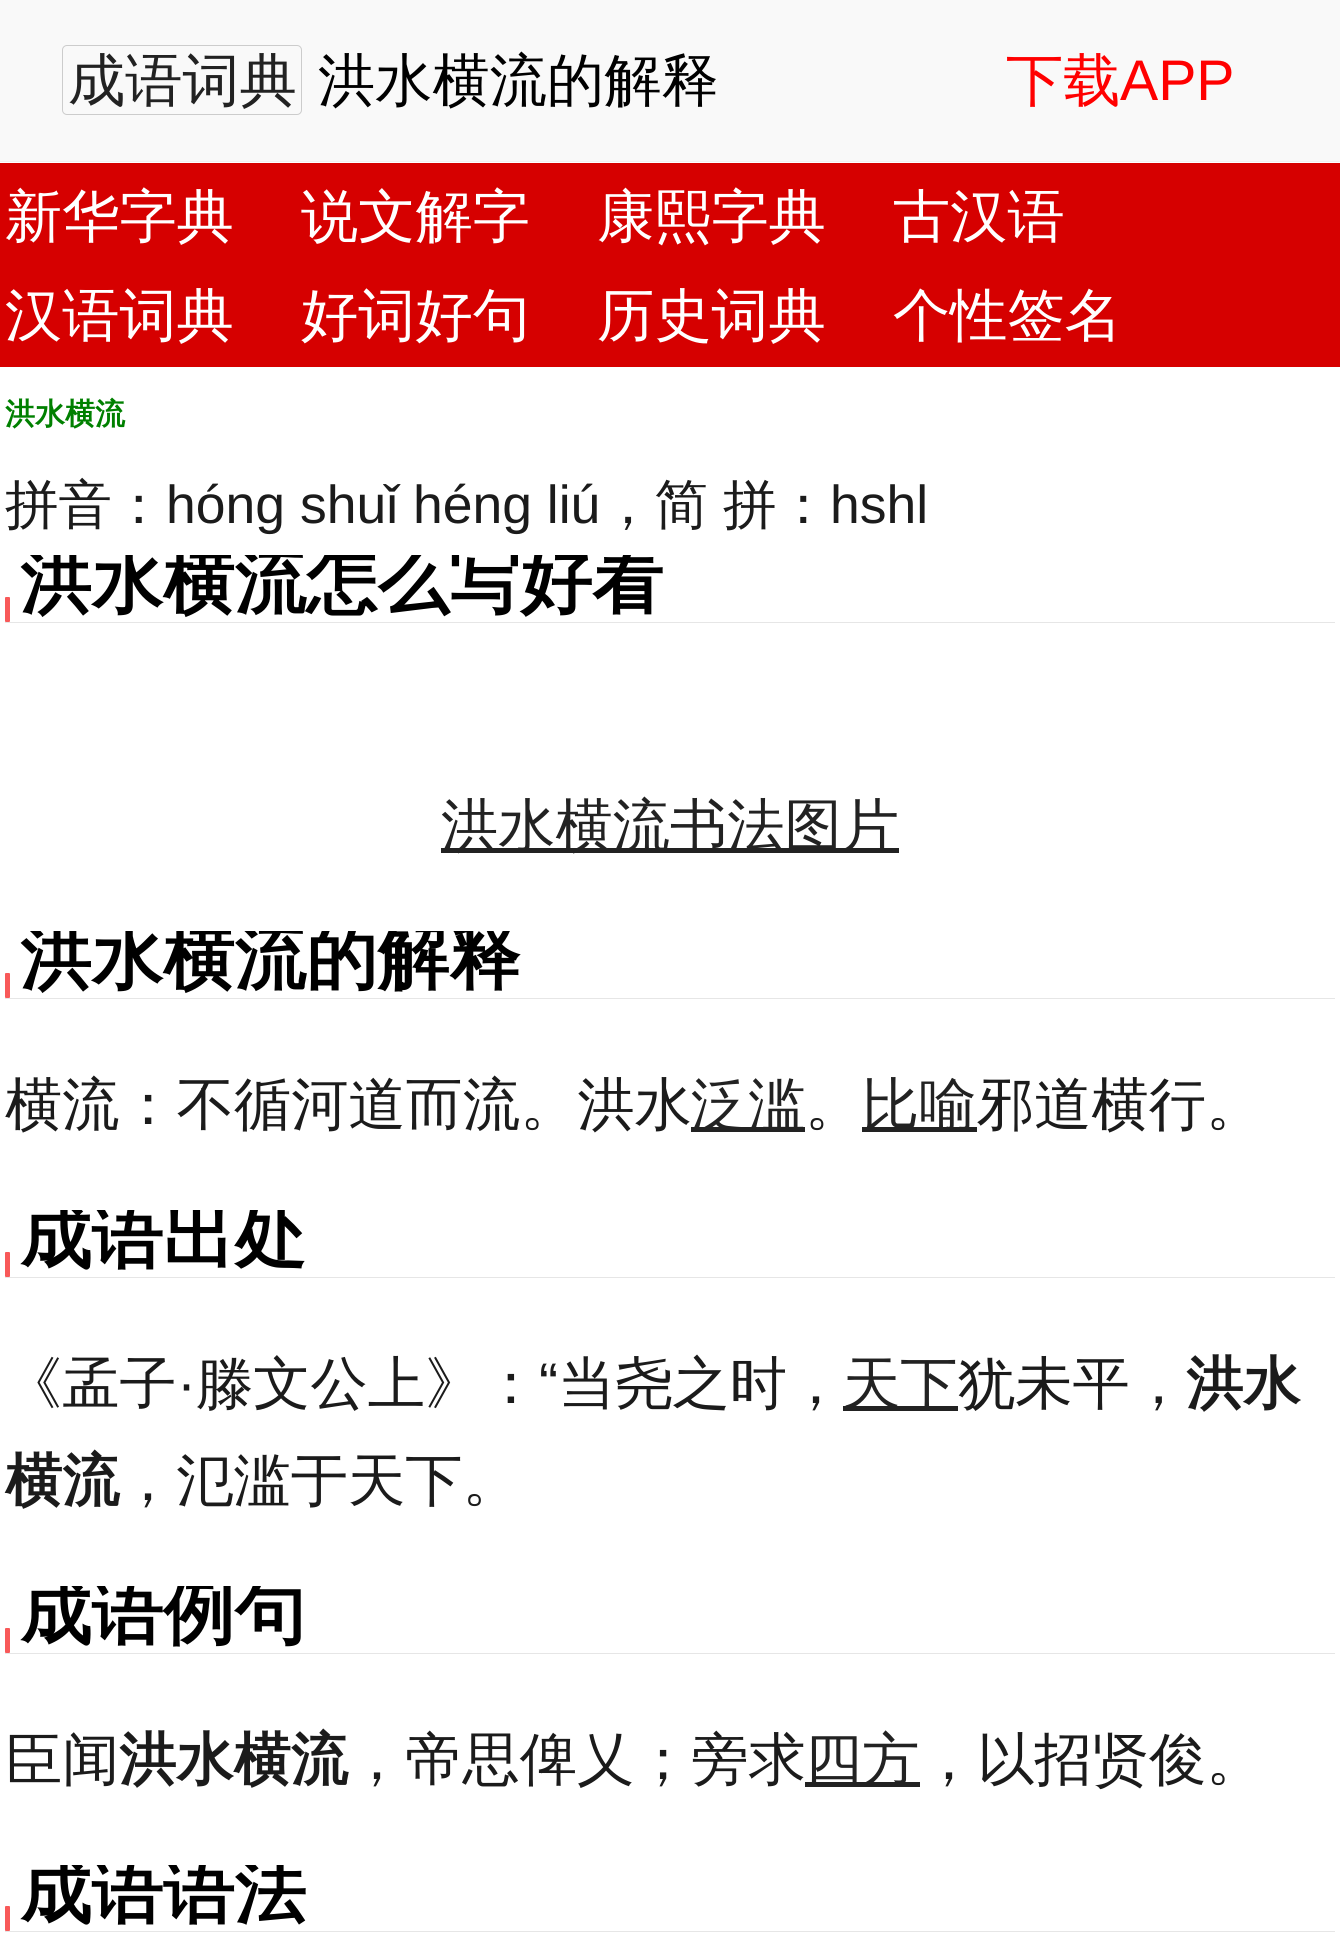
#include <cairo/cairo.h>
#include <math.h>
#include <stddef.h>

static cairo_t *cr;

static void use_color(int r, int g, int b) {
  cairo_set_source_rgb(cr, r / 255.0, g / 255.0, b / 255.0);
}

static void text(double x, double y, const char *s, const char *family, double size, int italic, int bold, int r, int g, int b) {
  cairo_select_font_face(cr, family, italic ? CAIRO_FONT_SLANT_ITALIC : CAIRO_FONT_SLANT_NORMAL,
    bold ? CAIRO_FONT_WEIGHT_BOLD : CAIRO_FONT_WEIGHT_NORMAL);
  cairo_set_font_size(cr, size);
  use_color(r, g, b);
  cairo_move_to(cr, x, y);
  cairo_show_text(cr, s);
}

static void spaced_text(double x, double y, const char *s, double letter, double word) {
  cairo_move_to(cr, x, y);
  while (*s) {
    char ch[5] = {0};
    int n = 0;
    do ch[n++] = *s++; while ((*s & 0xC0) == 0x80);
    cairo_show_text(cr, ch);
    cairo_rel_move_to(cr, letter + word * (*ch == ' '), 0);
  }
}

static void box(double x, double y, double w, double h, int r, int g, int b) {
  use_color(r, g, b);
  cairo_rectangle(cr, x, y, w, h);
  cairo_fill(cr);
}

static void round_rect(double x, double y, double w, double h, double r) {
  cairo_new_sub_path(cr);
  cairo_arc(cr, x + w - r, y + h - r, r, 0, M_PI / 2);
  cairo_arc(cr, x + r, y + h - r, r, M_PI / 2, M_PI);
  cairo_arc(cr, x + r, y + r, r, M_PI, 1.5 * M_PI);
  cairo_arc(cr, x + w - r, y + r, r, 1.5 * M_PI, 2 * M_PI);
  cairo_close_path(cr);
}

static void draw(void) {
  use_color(255, 255, 255);
  cairo_paint(cr);
  box(0, 0, 1340, 161, 249, 249, 249);
  box(0, 161, 1340, 1, 241, 241, 241);
  round_rect(62.5, 45.5, 239, 69, 4.5);
  use_color(204, 204, 204);
  cairo_set_line_width(cr, 1);
  cairo_stroke(cr);
  box(0, 163, 1340, 204, 214, 0, 0);
  box(5, 622, 1330, 1, 230, 230, 230);
  use_color(248, 89, 89);
  round_rect(5, 597, 5, 25, 1);
  cairo_fill(cr);
  box(441, 848, 458, 5, 34, 34, 34);
  box(5, 998, 1330, 1, 230, 230, 230);
  use_color(248, 89, 89);
  round_rect(5, 973, 5, 25, 1);
  cairo_fill(cr);
  box(691, 1127, 114, 5, 34, 34, 34);
  box(862, 1127, 115, 5, 34, 34, 34);
  box(5, 1277, 1330, 1, 230, 230, 230);
  use_color(248, 89, 89);
  round_rect(5, 1252, 5, 25, 1);
  cairo_fill(cr);
  box(843, 1406, 115, 5, 34, 34, 34);
  box(5, 1653, 1330, 1, 230, 230, 230);
  use_color(248, 89, 89);
  round_rect(5, 1628, 5, 25, 1);
  cairo_fill(cr);
  box(805, 1782, 115, 5, 34, 34, 34);
  box(5, 1931, 1330, 1, 230, 230, 230);
  use_color(248, 89, 89);
  round_rect(5, 1906, 5, 25, 1);
  cairo_fill(cr);
  text(68, 100, "成语词典", "WenQuanYi Zen Hei Medium", 57.25, 0, 0, 34, 34, 34);
  text(318, 100, "洪水横流的解释", "WenQuanYi Zen Hei Medium", 57.25, 0, 0, 0, 0, 0);
  text(1006, 100, "下载", "WenQuanYi Zen Hei Medium", 57.25, 0, 0, 255, 0, 0);
  text(1120, 100, "APP", "Liberation Sans", 57.25, 0, 0, 255, 0, 0);
  text(5, 236, "新华字典", "WenQuanYi Zen Hei Medium", 57.25, 0, 0, 255, 255, 255);
  text(301, 236, "说文解字", "WenQuanYi Zen Hei Medium", 57.25, 0, 0, 255, 255, 255);
  text(597, 236, "康熙字典", "WenQuanYi Zen Hei Medium", 57.25, 0, 0, 255, 255, 255);
  text(893, 236, "古汉语", "WenQuanYi Zen Hei Medium", 57.25, 0, 0, 255, 255, 255);
  text(5, 335, "汉语词典", "WenQuanYi Zen Hei Medium", 57.25, 0, 0, 255, 255, 255);
  text(301, 335, "好词好句", "WenQuanYi Zen Hei Medium", 57.25, 0, 0, 255, 255, 255);
  text(597, 335, "历史词典", "WenQuanYi Zen Hei Medium", 57.25, 0, 0, 255, 255, 255);
  text(893, 335, "个性签名", "WenQuanYi Zen Hei Medium", 57.25, 0, 0, 255, 255, 255);
  text(5, 424, "洪水横流", "WenQuanYi Zen Hei", 30, 0, 1, 0, 128, 0);
  text(5, 523, "拼音：", "WenQuanYi Zen Hei Medium", 53.5, 0, 0, 27, 27, 27);
  text(166, 523, "hóng shuǐ héng liú", "Liberation Sans", 53.5, 0, 0, 27, 27, 27);
  cairo_select_font_face(cr, "WenQuanYi Zen Hei Medium", CAIRO_FONT_SLANT_NORMAL, CAIRO_FONT_WEIGHT_NORMAL);
  spaced_text(601, 523, "，简 拼：", 0, -1);
  text(830, 523, "hshl", "Liberation Sans", 53.5, 0, 0, 27, 27, 27);
  cairo_save(cr);
  cairo_rectangle(cr, 5, 555, 1330, 67);
  cairo_clip(cr);
  text(20, 606, "洪水横流怎么写好看", "WenQuanYi Zen Hei", 71.5, 0, 1, 0, 0, 0);
  cairo_restore(cr);
  text(441, 845, "洪水横流书法图片", "WenQuanYi Zen Hei Medium", 57.25, 0, 0, 34, 34, 34);
  cairo_save(cr);
  cairo_rectangle(cr, 5, 931, 1330, 67);
  cairo_clip(cr);
  text(20, 982, "洪水横流的解释", "WenQuanYi Zen Hei", 71.5, 0, 1, 0, 0, 0);
  cairo_restore(cr);
  text(5, 1124, "横流：不循河道而流。洪水", "WenQuanYi Zen Hei Medium", 57.25, 0, 0, 27, 27, 27);
  text(691, 1124, "泛滥", "WenQuanYi Zen Hei Medium", 57.25, 0, 0, 34, 34, 34);
  text(805, 1124, "。", "WenQuanYi Zen Hei Medium", 57.25, 0, 0, 27, 27, 27);
  text(862, 1124, "比喻", "WenQuanYi Zen Hei Medium", 57.25, 0, 0, 34, 34, 34);
  text(977, 1124, "邪道横行。", "WenQuanYi Zen Hei Medium", 57.25, 0, 0, 27, 27, 27);
  cairo_save(cr);
  cairo_rectangle(cr, 5, 1210, 1330, 67);
  cairo_clip(cr);
  text(20, 1261, "成语出处", "WenQuanYi Zen Hei", 71.5, 0, 1, 0, 0, 0);
  cairo_restore(cr);
  text(5, 1403, "《孟子", "WenQuanYi Zen Hei Medium", 57.25, 0, 0, 27, 27, 27);
  text(196, 1403, "滕文公上》：", "WenQuanYi Zen Hei Medium", 57.25, 0, 0, 27, 27, 27);
  text(539, 1403, "“", "Liberation Sans", 57.25, 0, 0, 27, 27, 27);
  text(558, 1403, "当尧之时，", "WenQuanYi Zen Hei Medium", 57.25, 0, 0, 27, 27, 27);
  text(843, 1403, "天下", "WenQuanYi Zen Hei Medium", 57.25, 0, 0, 34, 34, 34);
  text(958, 1403, "犹未平，", "WenQuanYi Zen Hei Medium", 57.25, 0, 0, 27, 27, 27);
  text(1186, 1403, "洪水", "WenQuanYi Zen Hei", 57.25, 0, 1, 27, 27, 27);
  text(177, 1403, "·", "Liberation Sans", 57.25, 0, 0, 27, 27, 27);
  text(5, 1500, "横流", "WenQuanYi Zen Hei", 57.25, 0, 1, 27, 27, 27);
  text(119, 1500, "，氾滥于天下。", "WenQuanYi Zen Hei Medium", 57.25, 0, 0, 27, 27, 27);
  cairo_save(cr);
  cairo_rectangle(cr, 5, 1586, 1330, 67);
  cairo_clip(cr);
  text(20, 1637, "成语例句", "WenQuanYi Zen Hei", 71.5, 0, 1, 0, 0, 0);
  cairo_restore(cr);
  text(5, 1779, "臣闻", "WenQuanYi Zen Hei Medium", 57.25, 0, 0, 27, 27, 27);
  text(119, 1779, "洪水横流", "WenQuanYi Zen Hei", 57.25, 0, 1, 27, 27, 27);
  text(348, 1779, "，帝思俾乂；旁求", "WenQuanYi Zen Hei Medium", 57.25, 0, 0, 27, 27, 27);
  text(805, 1779, "四方", "WenQuanYi Zen Hei Medium", 57.25, 0, 0, 34, 34, 34);
  text(920, 1779, "，以招贤俊。", "WenQuanYi Zen Hei Medium", 57.25, 0, 0, 27, 27, 27);
  cairo_save(cr);
  cairo_rectangle(cr, 5, 1865, 1330, 66);
  cairo_clip(cr);
  text(20, 1916, "成语语法", "WenQuanYi Zen Hei", 71.5, 0, 1, 0, 0, 0);
  cairo_restore(cr);
}

int main(void) {
  cairo_surface_t *surface = cairo_image_surface_create(CAIRO_FORMAT_RGB24, 1340, 1934);
  cr = cairo_create(surface);
  cairo_font_options_t *options = cairo_font_options_create();
  cairo_font_options_set_hint_metrics(options, CAIRO_HINT_METRICS_OFF);
  cairo_font_options_set_hint_style(options, CAIRO_HINT_STYLE_NONE);
  cairo_set_font_options(cr, options);
  cairo_set_miter_limit(cr, 4);
  draw();
  cairo_surface_write_to_png(surface, "out.png");
  cairo_font_options_destroy(options);
  cairo_destroy(cr);
  cairo_surface_destroy(surface);
  return 0;
}
